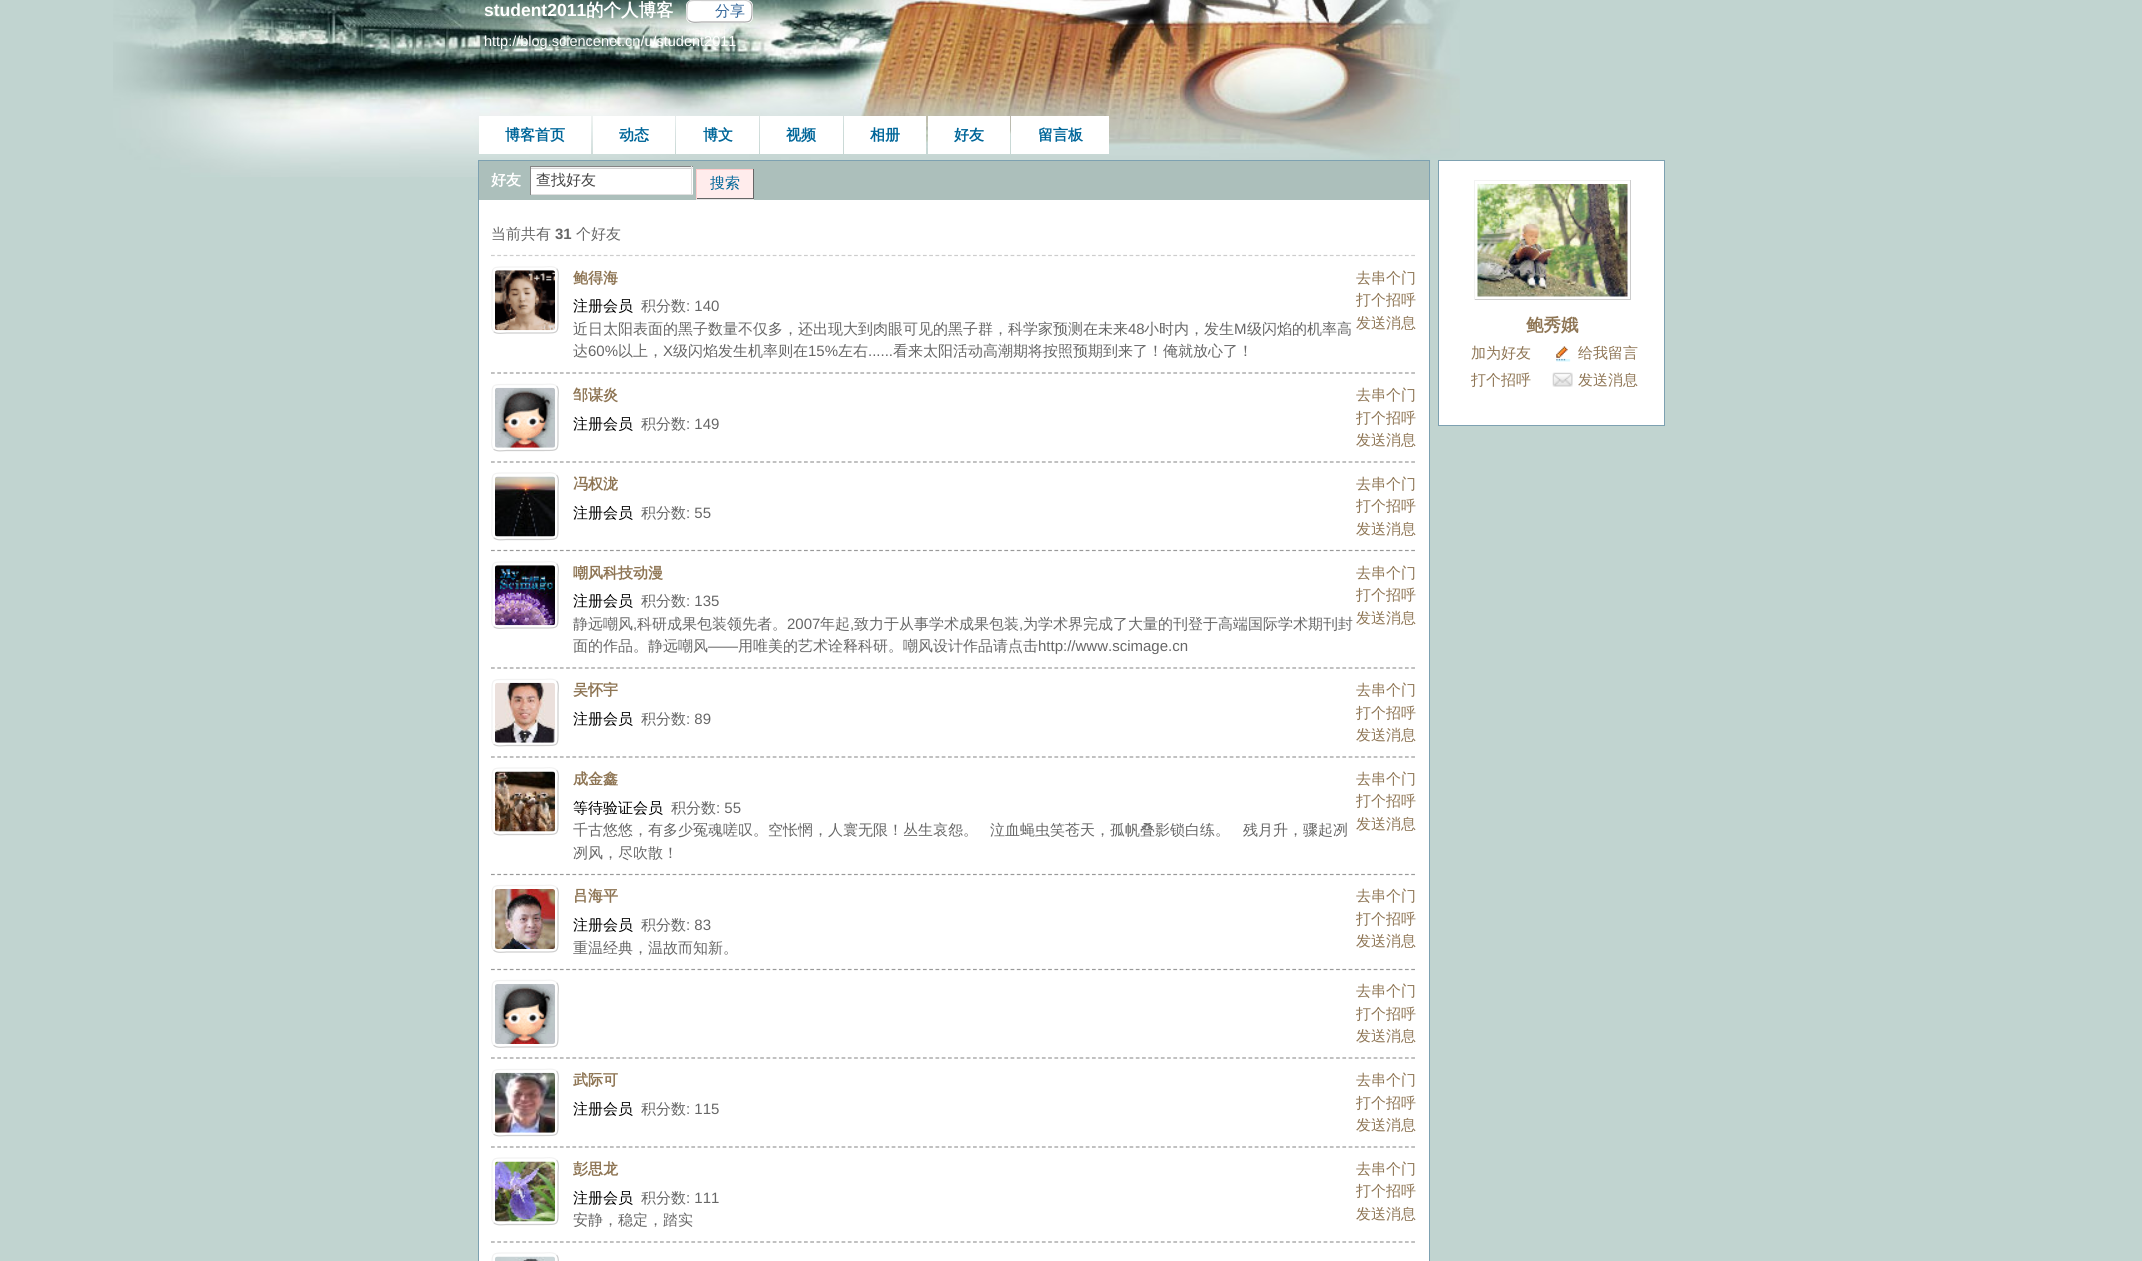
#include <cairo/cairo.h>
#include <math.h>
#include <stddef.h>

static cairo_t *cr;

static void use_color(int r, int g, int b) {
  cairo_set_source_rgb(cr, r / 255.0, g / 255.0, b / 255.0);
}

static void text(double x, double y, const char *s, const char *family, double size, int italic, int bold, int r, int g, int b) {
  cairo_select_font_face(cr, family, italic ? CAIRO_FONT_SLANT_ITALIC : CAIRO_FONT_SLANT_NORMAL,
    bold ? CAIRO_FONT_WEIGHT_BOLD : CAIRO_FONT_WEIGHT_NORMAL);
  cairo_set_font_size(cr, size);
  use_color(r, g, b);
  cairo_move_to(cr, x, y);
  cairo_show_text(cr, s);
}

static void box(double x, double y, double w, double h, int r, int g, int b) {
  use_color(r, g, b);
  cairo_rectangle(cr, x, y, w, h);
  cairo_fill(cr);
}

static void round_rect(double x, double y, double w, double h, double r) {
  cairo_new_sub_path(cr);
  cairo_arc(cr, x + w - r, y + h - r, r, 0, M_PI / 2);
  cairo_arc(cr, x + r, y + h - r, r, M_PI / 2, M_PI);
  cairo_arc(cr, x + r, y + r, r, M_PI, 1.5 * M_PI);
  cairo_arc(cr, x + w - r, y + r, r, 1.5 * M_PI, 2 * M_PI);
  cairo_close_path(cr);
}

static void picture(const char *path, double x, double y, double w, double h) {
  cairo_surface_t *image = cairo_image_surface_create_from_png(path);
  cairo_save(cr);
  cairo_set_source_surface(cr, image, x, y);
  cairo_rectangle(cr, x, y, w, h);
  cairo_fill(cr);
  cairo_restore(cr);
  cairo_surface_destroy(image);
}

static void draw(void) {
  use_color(193, 212, 208);
  cairo_paint(cr);
  picture("img_01.png", 113, 0, 1347, 177);
  use_color(255, 255, 255);
  round_rect(686, 0, 67, 23, 6);
  cairo_fill(cr);
  cairo_new_path(cr);
  cairo_move_to(cr, 750, 2.5);
  cairo_curve_to(cr, 752.5, 4.5, 752, 8.5, 752, 11);
  cairo_curve_to(cr, 752, 23.5, 749.5, 22, 737.5, 22);
  cairo_line_to(cr, 701.5, 22);
  cairo_curve_to(cr, 698.5, 22, 691.5, 23.5, 688.5, 20);
  use_color(169, 169, 169);
  cairo_set_line_width(cr, 1.2);
  cairo_stroke(cr);
  cairo_new_path(cr);
  cairo_move_to(cr, 688.5, 20);
  cairo_curve_to(cr, 686, 18, 687, 14, 687, 11.5);
  cairo_curve_to(cr, 687, -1, 689, 0.5, 701.5, 0.5);
  cairo_line_to(cr, 737.5, 0.5);
  cairo_curve_to(cr, 740, 0.5, 747, -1, 750, 2.5);
  use_color(204, 204, 204);
  cairo_stroke(cr);
  box(479, 116, 112, 38, 255, 255, 255);
  box(593, 116, 82, 38, 255, 255, 255);
  box(676, 116, 83, 38, 255, 255, 255);
  box(760, 116, 83, 38, 255, 255, 255);
  box(844, 116, 82, 38, 255, 255, 255);
  box(928, 116, 82, 38, 255, 255, 255);
  box(1011, 116, 98, 38, 255, 255, 255);
  box(479, 200, 950, 1061, 255, 255, 255);
  cairo_rectangle(cr, 478.5, 160.5, 951, 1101);
  use_color(125, 161, 177);
  cairo_set_line_width(cr, 1);
  cairo_stroke(cr);
  box(479, 161, 950, 39, 172, 191, 187);
  box(531, 167, 162, 27, 255, 255, 255);
  picture("img_02.png", 531, 167, 162, 2);
  box(530, 166, 163, 1, 132, 132, 132);
  box(691, 166, 1, 29, 224, 224, 224);
  box(530, 194, 163, 1, 224, 224, 224);
  box(530, 166, 1, 29, 132, 132, 132);
  use_color(229, 229, 229);
  cairo_new_path(cr);
  cairo_move_to(cr, 696, 170);
  cairo_line_to(cr, 696, 200);
  cairo_line_to(cr, 754, 200);
  cairo_line_to(cr, 754, 170);
  cairo_line_to(cr, 754, 199);
  cairo_line_to(cr, 696, 199);
  cairo_close_path(cr);
  cairo_fill(cr);
  box(697, 170, 56, 28, 255, 236, 236);
  box(696, 169, 58, 1, 255, 204, 204);
  box(753, 169, 1, 30, 102, 102, 102);
  box(696, 198, 58, 1, 102, 102, 102);
  box(696, 169, 1, 30, 255, 204, 204);
  cairo_new_path(cr);
  cairo_move_to(cr, 491, 255.5);
  cairo_line_to(cr, 1416, 255.5);
  use_color(205, 205, 205);
  cairo_set_line_width(cr, 1.2);
  cairo_set_dash(cr, (double[]){3.75, 2.51}, 2, 0);
  cairo_stroke(cr);
  cairo_new_path(cr);
  cairo_move_to(cr, 491, 373);
  cairo_line_to(cr, 1416, 373);
  use_color(153, 153, 153);
  cairo_stroke(cr);
  cairo_new_path(cr);
  cairo_move_to(cr, 556.5, 268.5);
  cairo_curve_to(cr, 559.5, 271.5, 558, 279, 558, 281.5);
  cairo_line_to(cr, 558, 318.5);
  cairo_curve_to(cr, 558, 333.5, 558.5, 333, 543.5, 333);
  cairo_line_to(cr, 506.5, 333);
  cairo_curve_to(cr, 504, 333, 496.5, 334.5, 493.5, 331.5);
  use_color(205, 205, 205);
  cairo_set_dash(cr, NULL, 0, 0);
  cairo_stroke(cr);
  cairo_new_path(cr);
  cairo_move_to(cr, 493.5, 331.5);
  cairo_curve_to(cr, 490.5, 328.5, 492, 321, 492, 318.5);
  cairo_line_to(cr, 492, 281.5);
  cairo_curve_to(cr, 492, 266.5, 491.5, 267, 506.5, 267);
  cairo_line_to(cr, 543.5, 267);
  cairo_curve_to(cr, 546, 267, 553.5, 265.5, 556.5, 268.5);
  use_color(242, 242, 242);
  cairo_stroke(cr);
  picture("img_03.png", 495, 270, 60, 61);
  cairo_new_path(cr);
  cairo_move_to(cr, 491, 462);
  cairo_line_to(cr, 1416, 462);
  use_color(153, 153, 153);
  cairo_set_dash(cr, (double[]){3.75, 2.51}, 2, 0);
  cairo_stroke(cr);
  cairo_new_path(cr);
  cairo_move_to(cr, 556.5, 386);
  cairo_curve_to(cr, 559.5, 389, 558, 396.5, 558, 399);
  cairo_line_to(cr, 558, 436);
  cairo_curve_to(cr, 558, 451, 558.5, 450.5, 543.5, 450.5);
  cairo_line_to(cr, 506.5, 450.5);
  cairo_curve_to(cr, 504, 450.5, 496.5, 452, 493.5, 449);
  use_color(205, 205, 205);
  cairo_set_dash(cr, NULL, 0, 0);
  cairo_stroke(cr);
  cairo_new_path(cr);
  cairo_move_to(cr, 493.5, 449);
  cairo_curve_to(cr, 490.5, 446, 492, 438.5, 492, 436);
  cairo_line_to(cr, 492, 399);
  cairo_curve_to(cr, 492, 384, 491.5, 384.5, 506.5, 384.5);
  cairo_line_to(cr, 543.5, 384.5);
  cairo_curve_to(cr, 546, 384.5, 553.5, 383, 556.5, 386);
  use_color(242, 242, 242);
  cairo_stroke(cr);
  picture("img_04.png", 495, 387, 60, 61);
  cairo_new_path(cr);
  cairo_move_to(cr, 491, 550.5);
  cairo_line_to(cr, 1416, 550.5);
  use_color(153, 153, 153);
  cairo_set_dash(cr, (double[]){3.75, 2.51}, 2, 0);
  cairo_stroke(cr);
  cairo_new_path(cr);
  cairo_move_to(cr, 556.5, 475);
  cairo_curve_to(cr, 559.5, 478, 558, 485, 558, 488);
  cairo_line_to(cr, 558, 524.5);
  cairo_curve_to(cr, 558, 540, 558.5, 539.5, 543.5, 539.5);
  cairo_line_to(cr, 506.5, 539.5);
  cairo_curve_to(cr, 504, 539.5, 496.5, 541, 493.5, 537.5);
  use_color(205, 205, 205);
  cairo_set_dash(cr, NULL, 0, 0);
  cairo_stroke(cr);
  cairo_new_path(cr);
  cairo_move_to(cr, 493.5, 537.5);
  cairo_curve_to(cr, 490.5, 534.5, 492, 527.5, 492, 524.5);
  cairo_line_to(cr, 492, 488);
  cairo_curve_to(cr, 492, 472.5, 491.5, 473, 506.5, 473);
  cairo_line_to(cr, 543.5, 473);
  cairo_curve_to(cr, 546, 473, 553.5, 471.5, 556.5, 475);
  use_color(242, 242, 242);
  cairo_stroke(cr);
  picture("img_05.png", 495, 476, 60, 61);
  cairo_new_path(cr);
  cairo_move_to(cr, 491, 668);
  cairo_line_to(cr, 1416, 668);
  use_color(153, 153, 153);
  cairo_set_dash(cr, (double[]){3.75, 2.51}, 2, 0);
  cairo_stroke(cr);
  cairo_new_path(cr);
  cairo_move_to(cr, 556.5, 563.5);
  cairo_curve_to(cr, 559.5, 566.5, 558, 574, 558, 576.5);
  cairo_line_to(cr, 558, 613.5);
  cairo_curve_to(cr, 558, 628.5, 558.5, 628, 543.5, 628);
  cairo_line_to(cr, 506.5, 628);
  cairo_curve_to(cr, 504, 628, 496.5, 629.5, 493.5, 626.5);
  use_color(205, 205, 205);
  cairo_set_dash(cr, NULL, 0, 0);
  cairo_stroke(cr);
  cairo_new_path(cr);
  cairo_move_to(cr, 493.5, 626.5);
  cairo_curve_to(cr, 490.5, 623.5, 492, 616, 492, 613.5);
  cairo_line_to(cr, 492, 576.5);
  cairo_curve_to(cr, 492, 561.5, 491.5, 562, 506.5, 562);
  cairo_line_to(cr, 543.5, 562);
  cairo_curve_to(cr, 546, 562, 553.5, 560.5, 556.5, 563.5);
  use_color(242, 242, 242);
  cairo_stroke(cr);
  picture("img_06.png", 495, 565, 60, 61);
  cairo_new_path(cr);
  cairo_move_to(cr, 491, 757);
  cairo_line_to(cr, 1416, 757);
  use_color(153, 153, 153);
  cairo_set_dash(cr, (double[]){3.75, 2.51}, 2, 0);
  cairo_stroke(cr);
  cairo_new_path(cr);
  cairo_move_to(cr, 556.5, 681);
  cairo_curve_to(cr, 559.5, 684, 558, 691.5, 558, 694);
  cairo_line_to(cr, 558, 731);
  cairo_curve_to(cr, 558, 746, 558.5, 745.5, 543.5, 745.5);
  cairo_line_to(cr, 506.5, 745.5);
  cairo_curve_to(cr, 504, 745.5, 496.5, 747, 493.5, 744);
  use_color(205, 205, 205);
  cairo_set_dash(cr, NULL, 0, 0);
  cairo_stroke(cr);
  cairo_new_path(cr);
  cairo_move_to(cr, 493.5, 744);
  cairo_curve_to(cr, 490.5, 741, 492, 733.5, 492, 731);
  cairo_line_to(cr, 492, 694);
  cairo_curve_to(cr, 492, 679, 491.5, 679.5, 506.5, 679.5);
  cairo_line_to(cr, 543.5, 679.5);
  cairo_curve_to(cr, 546, 679.5, 553.5, 678, 556.5, 681);
  use_color(242, 242, 242);
  cairo_stroke(cr);
  picture("img_07.png", 495, 682, 60, 61);
  cairo_new_path(cr);
  cairo_move_to(cr, 491, 874.5);
  cairo_line_to(cr, 1416, 874.5);
  use_color(153, 153, 153);
  cairo_set_dash(cr, (double[]){3.75, 2.51}, 2, 0);
  cairo_stroke(cr);
  cairo_new_path(cr);
  cairo_move_to(cr, 556.5, 770);
  cairo_curve_to(cr, 559.5, 773, 558, 780, 558, 783);
  cairo_line_to(cr, 558, 819.5);
  cairo_curve_to(cr, 558, 835, 558.5, 834.5, 543.5, 834.5);
  cairo_line_to(cr, 506.5, 834.5);
  cairo_curve_to(cr, 504, 834.5, 496.5, 836, 493.5, 832.5);
  use_color(205, 205, 205);
  cairo_set_dash(cr, NULL, 0, 0);
  cairo_stroke(cr);
  cairo_new_path(cr);
  cairo_move_to(cr, 493.5, 832.5);
  cairo_curve_to(cr, 490.5, 829.5, 492, 822.5, 492, 819.5);
  cairo_line_to(cr, 492, 783);
  cairo_curve_to(cr, 492, 767.5, 491.5, 768, 506.5, 768);
  cairo_line_to(cr, 543.5, 768);
  cairo_curve_to(cr, 546, 768, 553.5, 766.5, 556.5, 770);
  use_color(242, 242, 242);
  cairo_stroke(cr);
  picture("img_08.png", 495, 771, 60, 61);
  cairo_new_path(cr);
  cairo_move_to(cr, 491, 969.5);
  cairo_line_to(cr, 1416, 969.5);
  use_color(153, 153, 153);
  cairo_set_dash(cr, (double[]){3.75, 2.51}, 2, 0);
  cairo_stroke(cr);
  cairo_new_path(cr);
  cairo_move_to(cr, 556.5, 887.5);
  cairo_curve_to(cr, 559.5, 890.5, 558, 897.5, 558, 900.5);
  cairo_line_to(cr, 558, 937);
  cairo_curve_to(cr, 558, 952.5, 558.5, 952, 543.5, 952);
  cairo_line_to(cr, 506.5, 952);
  cairo_curve_to(cr, 504, 952, 496.5, 953.5, 493.5, 950);
  use_color(205, 205, 205);
  cairo_set_dash(cr, NULL, 0, 0);
  cairo_stroke(cr);
  cairo_new_path(cr);
  cairo_move_to(cr, 493.5, 950);
  cairo_curve_to(cr, 490.5, 947, 492, 940, 492, 937);
  cairo_line_to(cr, 492, 900.5);
  cairo_curve_to(cr, 492, 885, 491.5, 885.5, 506.5, 885.5);
  cairo_line_to(cr, 543.5, 885.5);
  cairo_curve_to(cr, 546, 885.5, 553.5, 884, 556.5, 887.5);
  use_color(242, 242, 242);
  cairo_stroke(cr);
  picture("img_09.png", 495, 889, 60, 60);
  cairo_new_path(cr);
  cairo_move_to(cr, 491, 1058);
  cairo_line_to(cr, 1416, 1058);
  use_color(153, 153, 153);
  cairo_set_dash(cr, (double[]){3.75, 2.51}, 2, 0);
  cairo_stroke(cr);
  cairo_new_path(cr);
  cairo_move_to(cr, 556.5, 982.5);
  cairo_curve_to(cr, 559.5, 985.5, 558, 992.5, 558, 995.5);
  cairo_line_to(cr, 558, 1032);
  cairo_curve_to(cr, 558, 1047.5, 558.5, 1047, 543.5, 1047);
  cairo_line_to(cr, 506.5, 1047);
  cairo_curve_to(cr, 504, 1047, 496.5, 1048.5, 493.5, 1045);
  use_color(205, 205, 205);
  cairo_set_dash(cr, NULL, 0, 0);
  cairo_stroke(cr);
  cairo_new_path(cr);
  cairo_move_to(cr, 493.5, 1045);
  cairo_curve_to(cr, 490.5, 1042, 492, 1035, 492, 1032);
  cairo_line_to(cr, 492, 995.5);
  cairo_curve_to(cr, 492, 980, 491.5, 980.5, 506.5, 980.5);
  cairo_line_to(cr, 543.5, 980.5);
  cairo_curve_to(cr, 546, 980.5, 553.5, 979, 556.5, 982.5);
  use_color(242, 242, 242);
  cairo_stroke(cr);
  picture("img_10.png", 495, 984, 60, 60);
  cairo_new_path(cr);
  cairo_move_to(cr, 491, 1147);
  cairo_line_to(cr, 1416, 1147);
  use_color(153, 153, 153);
  cairo_set_dash(cr, (double[]){3.75, 2.51}, 2, 0);
  cairo_stroke(cr);
  cairo_new_path(cr);
  cairo_move_to(cr, 556.5, 1071);
  cairo_curve_to(cr, 559.5, 1074, 558, 1081.5, 558, 1084);
  cairo_line_to(cr, 558, 1121);
  cairo_curve_to(cr, 558, 1136, 558.5, 1135.5, 543.5, 1135.5);
  cairo_line_to(cr, 506.5, 1135.5);
  cairo_curve_to(cr, 504, 1135.5, 496.5, 1137, 493.5, 1134);
  use_color(205, 205, 205);
  cairo_set_dash(cr, NULL, 0, 0);
  cairo_stroke(cr);
  cairo_new_path(cr);
  cairo_move_to(cr, 493.5, 1134);
  cairo_curve_to(cr, 490.5, 1131, 492, 1123.5, 492, 1121);
  cairo_line_to(cr, 492, 1084);
  cairo_curve_to(cr, 492, 1069, 491.5, 1069.5, 506.5, 1069.5);
  cairo_line_to(cr, 543.5, 1069.5);
  cairo_curve_to(cr, 546, 1069.5, 553.5, 1068, 556.5, 1071);
  use_color(242, 242, 242);
  cairo_stroke(cr);
  picture("img_11.png", 495, 1072, 60, 61);
  cairo_new_path(cr);
  cairo_move_to(cr, 491, 1242);
  cairo_line_to(cr, 1416, 1242);
  use_color(153, 153, 153);
  cairo_set_dash(cr, (double[]){3.75, 2.51}, 2, 0);
  cairo_stroke(cr);
  cairo_new_path(cr);
  cairo_move_to(cr, 556.5, 1160);
  cairo_curve_to(cr, 559.5, 1163, 558, 1170, 558, 1173);
  cairo_line_to(cr, 558, 1209.5);
  cairo_curve_to(cr, 558, 1225, 558.5, 1224.5, 543.5, 1224.5);
  cairo_line_to(cr, 506.5, 1224.5);
  cairo_curve_to(cr, 504, 1224.5, 496.5, 1226, 493.5, 1222.5);
  use_color(205, 205, 205);
  cairo_set_dash(cr, NULL, 0, 0);
  cairo_stroke(cr);
  cairo_new_path(cr);
  cairo_move_to(cr, 493.5, 1222.5);
  cairo_curve_to(cr, 490.5, 1219.5, 492, 1212.5, 492, 1209.5);
  cairo_line_to(cr, 492, 1173);
  cairo_curve_to(cr, 492, 1157.5, 491.5, 1158, 506.5, 1158);
  cairo_line_to(cr, 543.5, 1158);
  cairo_curve_to(cr, 546, 1158, 553.5, 1156.5, 556.5, 1160);
  use_color(242, 242, 242);
  cairo_stroke(cr);
  picture("img_12.png", 495, 1161, 60, 61);
  cairo_new_path(cr);
  cairo_move_to(cr, 556.5, 1255);
  cairo_curve_to(cr, 559.5, 1258, 558, 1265, 558, 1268);
  cairo_line_to(cr, 558, 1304.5);
  cairo_curve_to(cr, 558, 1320, 558.5, 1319.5, 543.5, 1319.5);
  cairo_line_to(cr, 506.5, 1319.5);
  cairo_curve_to(cr, 504, 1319.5, 496.5, 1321, 493.5, 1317.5);
  use_color(205, 205, 205);
  cairo_stroke(cr);
  cairo_new_path(cr);
  cairo_move_to(cr, 493.5, 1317.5);
  cairo_curve_to(cr, 490.5, 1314.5, 492, 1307.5, 492, 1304.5);
  cairo_line_to(cr, 492, 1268);
  cairo_curve_to(cr, 492, 1252.5, 491.5, 1253, 506.5, 1253);
  cairo_line_to(cr, 543.5, 1253);
  cairo_curve_to(cr, 546, 1253, 553.5, 1251.5, 556.5, 1255);
  use_color(242, 242, 242);
  cairo_stroke(cr);
  picture("img_13.png", 495, 1256, 60, 5);
  use_color(255, 255, 255);
  cairo_rectangle(cr, 1438.5, 160.5, 226, 265);
  cairo_fill_preserve(cr);
  use_color(125, 161, 177);
  cairo_set_line_width(cr, 1);
  cairo_stroke(cr);
  box(1474, 180, 157, 1, 242, 242, 242);
  box(1630, 180, 1, 120, 205, 205, 205);
  box(1474, 299, 157, 1, 205, 205, 205);
  box(1474, 180, 1, 120, 242, 242, 242);
  picture("img_14.png", 1477, 184, 151, 113);
  picture("img_15.png", 1556, 346, 15, 16);
  picture("img_16.png", 1552, 372, 21, 15);
  text(484, 16, "student2011", "Liberation Sans", 17.5, 0, 1, 255, 255, 255);
  text(586, 16, "的个人博客", "WenQuanYi Zen Hei", 17.5, 0, 1, 255, 255, 255);
  text(715, 16, "分享", "WenQuanYi Zen Hei Medium", 15, 0, 0, 51, 102, 153);
  text(484, 46, "http://blog.sciencenet.cn/u/student2011", "Liberation Sans", 14.5, 0, 0, 255, 255, 255);
  text(505, 140, "博客首页", "WenQuanYi Zen Hei", 15, 0, 1, 0, 102, 153);
  text(619, 140, "动态", "WenQuanYi Zen Hei", 15, 0, 1, 0, 102, 153);
  text(703, 140, "博文", "WenQuanYi Zen Hei", 15, 0, 1, 0, 102, 153);
  text(786, 140, "视频", "WenQuanYi Zen Hei", 15, 0, 1, 0, 102, 153);
  text(870, 140, "相册", "WenQuanYi Zen Hei", 15, 0, 1, 0, 102, 153);
  text(954, 140, "好友", "WenQuanYi Zen Hei", 15, 0, 1, 0, 102, 153);
  text(1038, 140, "留言板", "WenQuanYi Zen Hei", 15, 0, 1, 0, 102, 153);
  text(491, 185, "好友", "WenQuanYi Zen Hei", 15, 0, 1, 255, 255, 255);
  text(536, 185, "查找好友", "WenQuanYi Zen Hei Medium", 15, 0, 0, 68, 68, 68);
  text(710, 188, "搜索", "WenQuanYi Zen Hei Medium", 15, 0, 0, 0, 102, 153);
  text(491, 239, "当前共有", "WenQuanYi Zen Hei Medium", 15, 0, 0, 102, 102, 102);
  text(555, 239, "31", "Liberation Sans", 15, 0, 1, 102, 102, 102);
  text(576, 239, "个好友", "WenQuanYi Zen Hei Medium", 15, 0, 0, 102, 102, 102);
  text(573, 283, "鲍得海", "WenQuanYi Zen Hei", 15, 0, 1, 142, 117, 84);
  text(1356, 283, "去串个门", "WenQuanYi Zen Hei Medium", 15, 0, 0, 142, 117, 84);
  text(1356, 305, "打个招呼", "WenQuanYi Zen Hei Medium", 15, 0, 0, 142, 117, 84);
  text(1356, 328, "发送消息", "WenQuanYi Zen Hei Medium", 15, 0, 0, 142, 117, 84);
  text(573, 311, "注册会员", "WenQuanYi Zen Hei Medium", 15, 0, 0, 0, 0, 0);
  text(641, 311, "积分数", "WenQuanYi Zen Hei Medium", 15, 0, 0, 102, 102, 102);
  text(686, 311, ": 140", "Liberation Sans", 15, 0, 0, 102, 102, 102);
  text(573, 334, "近日太阳表面的黑子数量不仅多，还出现大到肉眼可见的黑子群，科学家预测在未来", "WenQuanYi Zen Hei Medium", 15, 0, 0, 102, 102, 102);
  text(1128, 334, "48", "Liberation Sans", 15, 0, 0, 102, 102, 102);
  text(1144, 334, "小时内，发生", "WenQuanYi Zen Hei Medium", 15, 0, 0, 102, 102, 102);
  text(1234, 334, "M", "Liberation Sans", 15, 0, 0, 102, 102, 102);
  text(1247, 334, "级闪焰的机率高", "WenQuanYi Zen Hei Medium", 15, 0, 0, 102, 102, 102);
  text(573, 356, "达", "WenQuanYi Zen Hei Medium", 15, 0, 0, 102, 102, 102);
  text(588, 356, "60%", "Liberation Sans", 15, 0, 0, 102, 102, 102);
  text(618, 356, "以上，", "WenQuanYi Zen Hei Medium", 15, 0, 0, 102, 102, 102);
  text(663, 356, "X", "Liberation Sans", 15, 0, 0, 102, 102, 102);
  text(673, 356, "级闪焰发生机率则在", "WenQuanYi Zen Hei Medium", 15, 0, 0, 102, 102, 102);
  text(808, 356, "15%", "Liberation Sans", 15, 0, 0, 102, 102, 102);
  text(838, 356, "左右", "WenQuanYi Zen Hei Medium", 15, 0, 0, 102, 102, 102);
  text(868, 356, "......", "Liberation Sans", 15, 0, 0, 102, 102, 102);
  text(893, 356, "看来太阳活动高潮期将按照预期到来了！俺就放心了！", "WenQuanYi Zen Hei Medium", 15, 0, 0, 102, 102, 102);
  text(573, 400, "邹谋炎", "WenQuanYi Zen Hei", 15, 0, 1, 142, 117, 84);
  text(1356, 400, "去串个门", "WenQuanYi Zen Hei Medium", 15, 0, 0, 142, 117, 84);
  text(1356, 423, "打个招呼", "WenQuanYi Zen Hei Medium", 15, 0, 0, 142, 117, 84);
  text(1356, 445, "发送消息", "WenQuanYi Zen Hei Medium", 15, 0, 0, 142, 117, 84);
  text(573, 429, "注册会员", "WenQuanYi Zen Hei Medium", 15, 0, 0, 0, 0, 0);
  text(641, 429, "积分数", "WenQuanYi Zen Hei Medium", 15, 0, 0, 102, 102, 102);
  text(686, 429, ": 149", "Liberation Sans", 15, 0, 0, 102, 102, 102);
  text(573, 489, "冯权泷", "WenQuanYi Zen Hei", 15, 0, 1, 142, 117, 84);
  text(1356, 489, "去串个门", "WenQuanYi Zen Hei Medium", 15, 0, 0, 142, 117, 84);
  text(1356, 511, "打个招呼", "WenQuanYi Zen Hei Medium", 15, 0, 0, 142, 117, 84);
  text(1356, 534, "发送消息", "WenQuanYi Zen Hei Medium", 15, 0, 0, 142, 117, 84);
  text(573, 518, "注册会员", "WenQuanYi Zen Hei Medium", 15, 0, 0, 0, 0, 0);
  text(641, 518, "积分数", "WenQuanYi Zen Hei Medium", 15, 0, 0, 102, 102, 102);
  text(686, 518, ": 55", "Liberation Sans", 15, 0, 0, 102, 102, 102);
  text(573, 578, "嘲风科技动漫", "WenQuanYi Zen Hei", 15, 0, 1, 142, 117, 84);
  text(1356, 578, "去串个门", "WenQuanYi Zen Hei Medium", 15, 0, 0, 142, 117, 84);
  text(1356, 600, "打个招呼", "WenQuanYi Zen Hei Medium", 15, 0, 0, 142, 117, 84);
  text(1356, 623, "发送消息", "WenQuanYi Zen Hei Medium", 15, 0, 0, 142, 117, 84);
  text(573, 606, "注册会员", "WenQuanYi Zen Hei Medium", 15, 0, 0, 0, 0, 0);
  text(641, 606, "积分数", "WenQuanYi Zen Hei Medium", 15, 0, 0, 102, 102, 102);
  text(686, 606, ": 135", "Liberation Sans", 15, 0, 0, 102, 102, 102);
  text(573, 629, "静远嘲风", "WenQuanYi Zen Hei Medium", 15, 0, 0, 102, 102, 102);
  text(633, 629, ",", "Liberation Sans", 15, 0, 0, 102, 102, 102);
  text(637, 629, "科研成果包装领先者。", "WenQuanYi Zen Hei Medium", 15, 0, 0, 102, 102, 102);
  text(787, 629, "2007", "Liberation Sans", 15, 0, 0, 102, 102, 102);
  text(820, 629, "年起", "WenQuanYi Zen Hei Medium", 15, 0, 0, 102, 102, 102);
  text(850, 629, ",", "Liberation Sans", 15, 0, 0, 102, 102, 102);
  text(854, 629, "致力于从事学术成果包装", "WenQuanYi Zen Hei Medium", 15, 0, 0, 102, 102, 102);
  text(1019, 629, ",", "Liberation Sans", 15, 0, 0, 102, 102, 102);
  text(1023, 629, "为学术界完成了大量的刊登于高端国际学术期刊封", "WenQuanYi Zen Hei Medium", 15, 0, 0, 102, 102, 102);
  text(573, 651, "面的作品。静远嘲风", "WenQuanYi Zen Hei Medium", 15, 0, 0, 102, 102, 102);
  text(708, 651, "——", "Liberation Sans", 15, 0, 0, 102, 102, 102);
  text(738, 651, "用唯美的艺术诠释科研。嘲风设计作品请点击", "WenQuanYi Zen Hei Medium", 15, 0, 0, 102, 102, 102);
  text(1038, 651, "http://www.scimage.cn", "Liberation Sans", 15, 0, 0, 102, 102, 102);
  text(573, 695, "吴怀宇", "WenQuanYi Zen Hei", 15, 0, 1, 142, 117, 84);
  text(1356, 695, "去串个门", "WenQuanYi Zen Hei Medium", 15, 0, 0, 142, 117, 84);
  text(1356, 718, "打个招呼", "WenQuanYi Zen Hei Medium", 15, 0, 0, 142, 117, 84);
  text(1356, 740, "发送消息", "WenQuanYi Zen Hei Medium", 15, 0, 0, 142, 117, 84);
  text(573, 724, "注册会员", "WenQuanYi Zen Hei Medium", 15, 0, 0, 0, 0, 0);
  text(641, 724, "积分数", "WenQuanYi Zen Hei Medium", 15, 0, 0, 102, 102, 102);
  text(686, 724, ": 89", "Liberation Sans", 15, 0, 0, 102, 102, 102);
  text(573, 784, "成金鑫", "WenQuanYi Zen Hei", 15, 0, 1, 142, 117, 84);
  text(1356, 784, "去串个门", "WenQuanYi Zen Hei Medium", 15, 0, 0, 142, 117, 84);
  text(1356, 806, "打个招呼", "WenQuanYi Zen Hei Medium", 15, 0, 0, 142, 117, 84);
  text(1356, 829, "发送消息", "WenQuanYi Zen Hei Medium", 15, 0, 0, 142, 117, 84);
  text(573, 813, "等待验证会员", "WenQuanYi Zen Hei Medium", 15, 0, 0, 0, 0, 0);
  text(671, 813, "积分数", "WenQuanYi Zen Hei Medium", 15, 0, 0, 102, 102, 102);
  text(716, 813, ": 55", "Liberation Sans", 15, 0, 0, 102, 102, 102);
  text(573, 835, "千古悠悠，有多少冤魂嗟叹。空怅惘，人寰无限！丛生哀怨。", "WenQuanYi Zen Hei Medium", 15, 0, 0, 102, 102, 102);
  text(990, 835, "泣血蝇虫笑苍天，孤帆叠影锁白练。", "WenQuanYi Zen Hei Medium", 15, 0, 0, 102, 102, 102);
  text(1243, 835, "残月升，骤起冽", "WenQuanYi Zen Hei Medium", 15, 0, 0, 102, 102, 102);
  text(573, 858, "冽风，尽吹散！", "WenQuanYi Zen Hei Medium", 15, 0, 0, 102, 102, 102);
  text(573, 901, "吕海平", "WenQuanYi Zen Hei", 15, 0, 1, 142, 117, 84);
  text(1356, 901, "去串个门", "WenQuanYi Zen Hei Medium", 15, 0, 0, 142, 117, 84);
  text(1356, 924, "打个招呼", "WenQuanYi Zen Hei Medium", 15, 0, 0, 142, 117, 84);
  text(1356, 946, "发送消息", "WenQuanYi Zen Hei Medium", 15, 0, 0, 142, 117, 84);
  text(573, 930, "注册会员", "WenQuanYi Zen Hei Medium", 15, 0, 0, 0, 0, 0);
  text(641, 930, "积分数", "WenQuanYi Zen Hei Medium", 15, 0, 0, 102, 102, 102);
  text(686, 930, ": 83", "Liberation Sans", 15, 0, 0, 102, 102, 102);
  text(573, 953, "重温经典，温故而知新。", "WenQuanYi Zen Hei Medium", 15, 0, 0, 102, 102, 102);
  text(1356, 996, "去串个门", "WenQuanYi Zen Hei Medium", 15, 0, 0, 142, 117, 84);
  text(1356, 1019, "打个招呼", "WenQuanYi Zen Hei Medium", 15, 0, 0, 142, 117, 84);
  text(1356, 1041, "发送消息", "WenQuanYi Zen Hei Medium", 15, 0, 0, 142, 117, 84);
  text(573, 1085, "武际可", "WenQuanYi Zen Hei", 15, 0, 1, 142, 117, 84);
  text(1356, 1085, "去串个门", "WenQuanYi Zen Hei Medium", 15, 0, 0, 142, 117, 84);
  text(1356, 1108, "打个招呼", "WenQuanYi Zen Hei Medium", 15, 0, 0, 142, 117, 84);
  text(1356, 1130, "发送消息", "WenQuanYi Zen Hei Medium", 15, 0, 0, 142, 117, 84);
  text(573, 1114, "注册会员", "WenQuanYi Zen Hei Medium", 15, 0, 0, 0, 0, 0);
  text(641, 1114, "积分数", "WenQuanYi Zen Hei Medium", 15, 0, 0, 102, 102, 102);
  text(686, 1114, ": 115", "Liberation Sans", 15, 0, 0, 102, 102, 102);
  text(573, 1174, "彭思龙", "WenQuanYi Zen Hei", 15, 0, 1, 142, 117, 84);
  text(1356, 1174, "去串个门", "WenQuanYi Zen Hei Medium", 15, 0, 0, 142, 117, 84);
  text(1356, 1196, "打个招呼", "WenQuanYi Zen Hei Medium", 15, 0, 0, 142, 117, 84);
  text(1356, 1219, "发送消息", "WenQuanYi Zen Hei Medium", 15, 0, 0, 142, 117, 84);
  text(573, 1203, "注册会员", "WenQuanYi Zen Hei Medium", 15, 0, 0, 0, 0, 0);
  text(641, 1203, "积分数", "WenQuanYi Zen Hei Medium", 15, 0, 0, 102, 102, 102);
  text(686, 1203, ": 111", "Liberation Sans", 15, 0, 0, 102, 102, 102);
  text(573, 1225, "安静，稳定，踏实", "WenQuanYi Zen Hei Medium", 15, 0, 0, 102, 102, 102);
  text(1526, 331, "鲍秀娥", "WenQuanYi Zen Hei", 17.5, 0, 1, 142, 117, 84);
  text(1471, 358, "加为好友", "WenQuanYi Zen Hei Medium", 15, 0, 0, 142, 117, 84);
  text(1578, 358, "给我留言", "WenQuanYi Zen Hei Medium", 15, 0, 0, 142, 117, 84);
  text(1471, 385, "打个招呼", "WenQuanYi Zen Hei Medium", 15, 0, 0, 142, 117, 84);
  text(1578, 385, "发送消息", "WenQuanYi Zen Hei Medium", 15, 0, 0, 142, 117, 84);
}

int main(void) {
  cairo_surface_t *surface = cairo_image_surface_create(CAIRO_FORMAT_RGB24, 2142, 1261);
  cr = cairo_create(surface);
  cairo_font_options_t *options = cairo_font_options_create();
  cairo_font_options_set_hint_metrics(options, CAIRO_HINT_METRICS_OFF);
  cairo_font_options_set_hint_style(options, CAIRO_HINT_STYLE_NONE);
  cairo_set_font_options(cr, options);
  cairo_set_miter_limit(cr, 4);
  draw();
  cairo_surface_write_to_png(surface, "out.png");
  cairo_font_options_destroy(options);
  cairo_destroy(cr);
  cairo_surface_destroy(surface);
  return 0;
}
